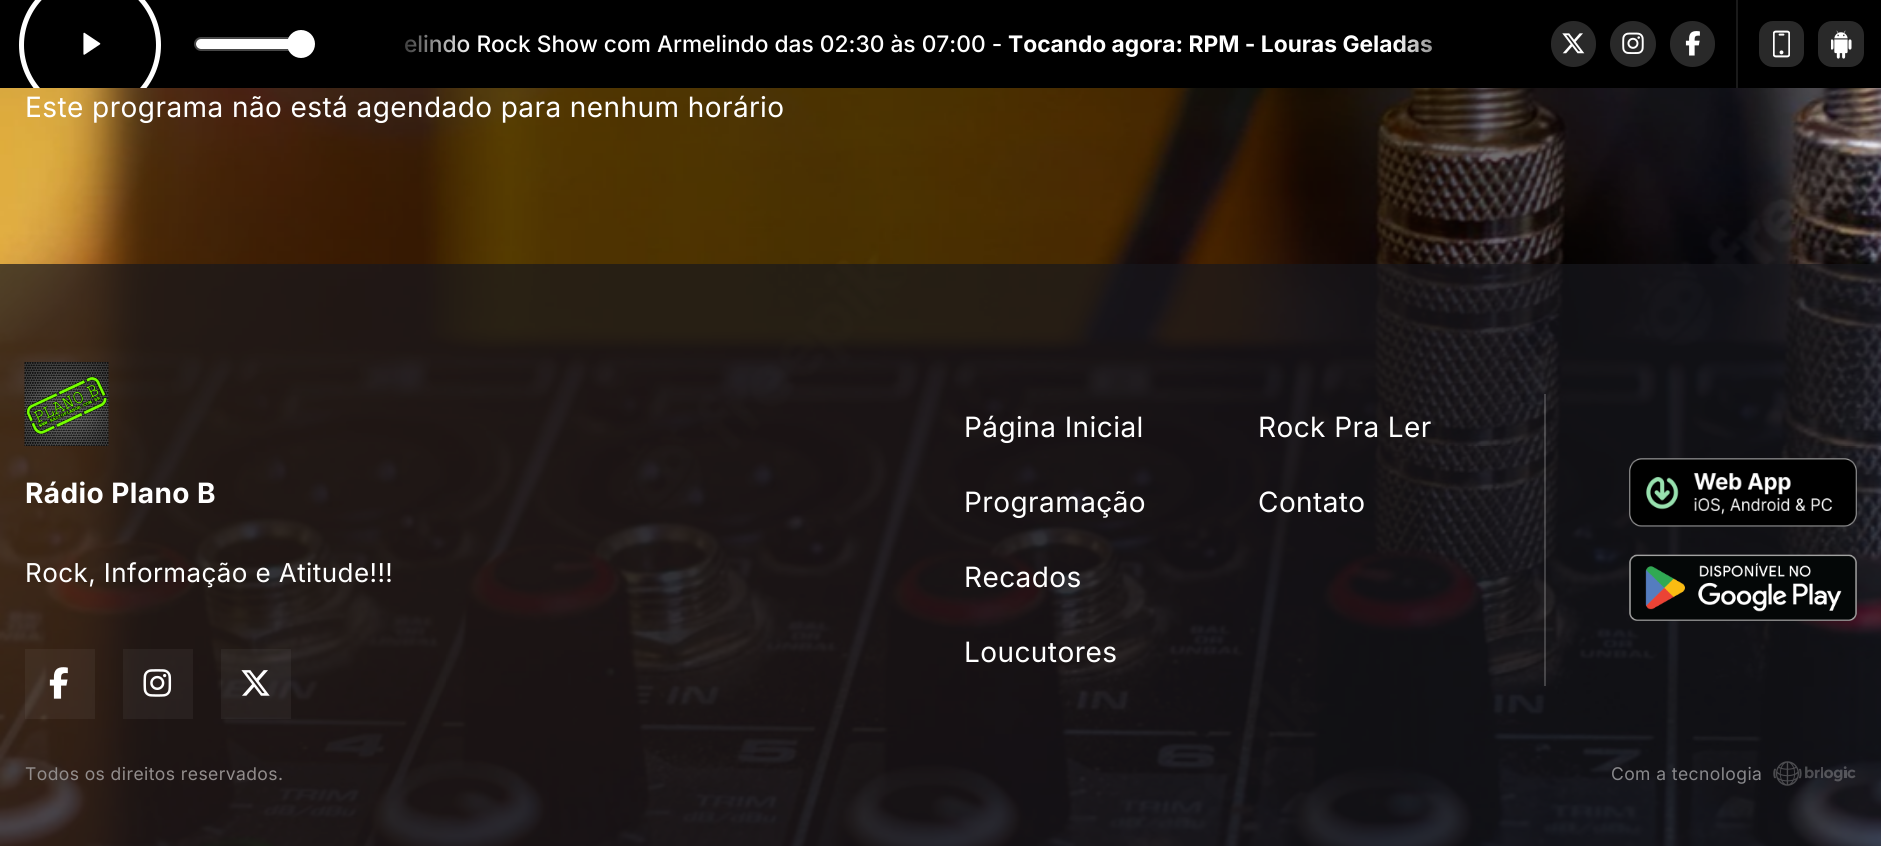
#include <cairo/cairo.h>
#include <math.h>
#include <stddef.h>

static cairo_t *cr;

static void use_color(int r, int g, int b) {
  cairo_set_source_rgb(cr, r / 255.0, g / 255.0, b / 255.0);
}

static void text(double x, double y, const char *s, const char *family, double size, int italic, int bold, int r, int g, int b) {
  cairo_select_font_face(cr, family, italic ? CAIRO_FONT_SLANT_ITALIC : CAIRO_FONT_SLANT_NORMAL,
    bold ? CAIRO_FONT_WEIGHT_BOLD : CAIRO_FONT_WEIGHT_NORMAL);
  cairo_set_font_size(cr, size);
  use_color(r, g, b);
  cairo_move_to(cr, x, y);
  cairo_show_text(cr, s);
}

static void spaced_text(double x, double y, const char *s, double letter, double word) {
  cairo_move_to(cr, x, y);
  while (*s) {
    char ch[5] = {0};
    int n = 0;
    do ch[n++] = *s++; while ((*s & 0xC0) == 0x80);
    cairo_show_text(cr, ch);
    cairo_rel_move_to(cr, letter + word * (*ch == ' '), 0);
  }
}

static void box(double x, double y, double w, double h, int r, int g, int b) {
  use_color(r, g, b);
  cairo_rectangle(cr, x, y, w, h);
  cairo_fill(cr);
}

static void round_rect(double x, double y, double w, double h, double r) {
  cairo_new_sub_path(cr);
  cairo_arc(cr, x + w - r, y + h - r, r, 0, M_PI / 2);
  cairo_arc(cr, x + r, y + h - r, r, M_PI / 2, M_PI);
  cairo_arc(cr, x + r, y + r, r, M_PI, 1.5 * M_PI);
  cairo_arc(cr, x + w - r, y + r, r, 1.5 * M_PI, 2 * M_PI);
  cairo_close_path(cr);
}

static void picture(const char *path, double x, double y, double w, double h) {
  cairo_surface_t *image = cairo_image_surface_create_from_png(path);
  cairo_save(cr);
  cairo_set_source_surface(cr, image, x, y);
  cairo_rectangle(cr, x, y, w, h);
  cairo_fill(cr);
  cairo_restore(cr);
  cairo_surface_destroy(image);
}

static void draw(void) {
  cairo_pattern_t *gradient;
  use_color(255, 255, 255);
  cairo_paint(cr);
  box(0, 0, 1881, 88, 0, 0, 0);
  picture("img_14.png", 0, 88, 1881, 758);
  cairo_save(cr);
  cairo_rectangle(cr, 0, 0, 1881, 88);
  cairo_clip(cr);
  cairo_arc(cr, 90, 45, 68.5, 0, 2 * M_PI);
  use_color(255, 255, 255);
  cairo_set_line_width(cr, 5);
  cairo_stroke(cr);
  cairo_restore(cr);
  picture("img_01.png", 83, 32, 18, 23);
  round_rect(195, 38, 107, 12, 6);
  use_color(71, 71, 71);
  cairo_stroke(cr);
  use_color(255, 255, 255);
  round_rect(196, 39, 105, 10, 5);
  cairo_fill(cr);
  cairo_arc(cr, 301, 44, 13, 0, 2 * M_PI);
  cairo_fill_preserve(cr);
  cairo_stroke(cr);
  use_color(41, 41, 41);
  round_rect(1551, 21, 45, 46, 22.5);
  cairo_fill(cr);
  picture("img_02.png", 1562, 33, 23, 21);
  cairo_arc(cr, 1633, 44, 23, 0, 2 * M_PI);
  cairo_fill(cr);
  picture("img_03.png", 1622, 32, 22, 22);
  round_rect(1670, 21, 45, 46, 22.5);
  cairo_fill(cr);
  picture("img_04.png", 1685, 31, 15, 25);
  box(1736, 0, 2, 88, 26, 26, 26);
  use_color(41, 41, 41);
  round_rect(1759, 21, 45, 46, 14);
  cairo_fill(cr);
  picture("img_05.png", 1773, 30, 17, 28);
  round_rect(1818, 21, 46, 46, 14);
  cairo_fill(cr);
  picture("img_06.png", 1831, 30, 21, 29);
  cairo_set_source_rgba(cr, 0.094, 0.094, 0.114, 0.7);
  cairo_rectangle(cr, 0, 264, 1881, 582);
  cairo_fill(cr);
  picture("img_07.png", 24, 362, 85, 84);
  cairo_set_source_rgba(cr, 1, 1, 1, 0.05);
  cairo_rectangle(cr, 25, 649, 70, 70);
  cairo_fill(cr);
  picture("img_08.png", 49, 667, 19, 32);
  cairo_rectangle(cr, 123, 649, 70, 70);
  cairo_fill(cr);
  picture("img_09.png", 143, 669, 29, 28);
  cairo_rectangle(cr, 221, 649, 70, 70);
  cairo_fill(cr);
  picture("img_10.png", 241, 670, 29, 26);
  cairo_set_source_rgba(cr, 1, 1, 1, 0.2);
  cairo_rectangle(cr, 1544, 394, 2, 292);
  cairo_fill(cr);
  picture("img_11.png", 1629, 458, 228, 69);
  picture("img_12.png", 1629, 554, 228, 67);
  picture("img_13.png", 1773, 761, 83, 25);
  text(404, 52, "elindo Rock Show com Armelindo das 02:30 às 07:00 -", "Inter Medium", 22.75, 0, 0, 255, 255, 255);
  text(1008, 52, "Tocando agora: RPM - Louras Geladas", "Inter", 22.75, 0, 1, 255, 255, 255);
  gradient = cairo_pattern_create_linear(359, 44, 474, 44);
  cairo_pattern_add_color_stop_rgba(gradient, 0.2, 0, 0, 0, 1);
  cairo_pattern_add_color_stop_rgba(gradient, 1, 0, 0, 0, 0);
  cairo_set_source(cr, gradient);
  cairo_pattern_destroy(gradient);
  cairo_rectangle(cr, 404, 34, 65, 19);
  cairo_fill(cr);
  gradient = cairo_pattern_create_linear(1509, 44, 1393, 44);
  cairo_pattern_add_color_stop_rgba(gradient, 0.2, 0, 0, 0, 1);
  cairo_pattern_add_color_stop_rgba(gradient, 1, 0, 0, 0, 0);
  cairo_set_source(cr, gradient);
  cairo_pattern_destroy(gradient);
  cairo_rectangle(cr, 1395, 35, 37, 18);
  cairo_fill(cr);
  cairo_select_font_face(cr, "Inter", CAIRO_FONT_SLANT_NORMAL, CAIRO_FONT_WEIGHT_NORMAL);
  cairo_set_font_size(cr, 28);
  use_color(255, 255, 255);
  spaced_text(25, 117, "Este programa não está agendado para nenhum horário", 0.42, 0);
  cairo_select_font_face(cr, "Inter", CAIRO_FONT_SLANT_NORMAL, CAIRO_FONT_WEIGHT_BOLD);
  spaced_text(25, 503, "Rádio Plano B", 0.42, 0);
  cairo_select_font_face(cr, "Inter", CAIRO_FONT_SLANT_NORMAL, CAIRO_FONT_WEIGHT_NORMAL);
  cairo_set_font_size(cr, 26);
  spaced_text(25, 582, "Rock, Informação e Atitude!!!", 0.42, 0);
  cairo_set_font_size(cr, 28);
  spaced_text(964, 437, "Página Inicial", 0.42, 0);
  spaced_text(1258, 437, "Rock Pra Ler", 0.42, 0);
  spaced_text(964, 512, "Programação", 0.42, 0);
  spaced_text(1258, 512, "Contato", 0.42, 0);
  spaced_text(964, 587, "Recados", 0.42, 0);
  spaced_text(964, 662, "Loucutores", 0.42, 0);
  cairo_set_font_size(cr, 17.5);
  use_color(146, 141, 140);
  spaced_text(25, 780, "Todos os direitos reservados.", 0.42, 0);
  use_color(137, 137, 140);
  spaced_text(1611, 780, "Com a tecnologia", 0.42, 0);
}

int main(void) {
  cairo_surface_t *surface = cairo_image_surface_create(CAIRO_FORMAT_RGB24, 1881, 846);
  cr = cairo_create(surface);
  cairo_font_options_t *options = cairo_font_options_create();
  cairo_font_options_set_hint_metrics(options, CAIRO_HINT_METRICS_OFF);
  cairo_font_options_set_hint_style(options, CAIRO_HINT_STYLE_NONE);
  cairo_set_font_options(cr, options);
  cairo_set_miter_limit(cr, 4);
  draw();
  cairo_surface_write_to_png(surface, "out.png");
  cairo_font_options_destroy(options);
  cairo_destroy(cr);
  cairo_surface_destroy(surface);
  return 0;
}
